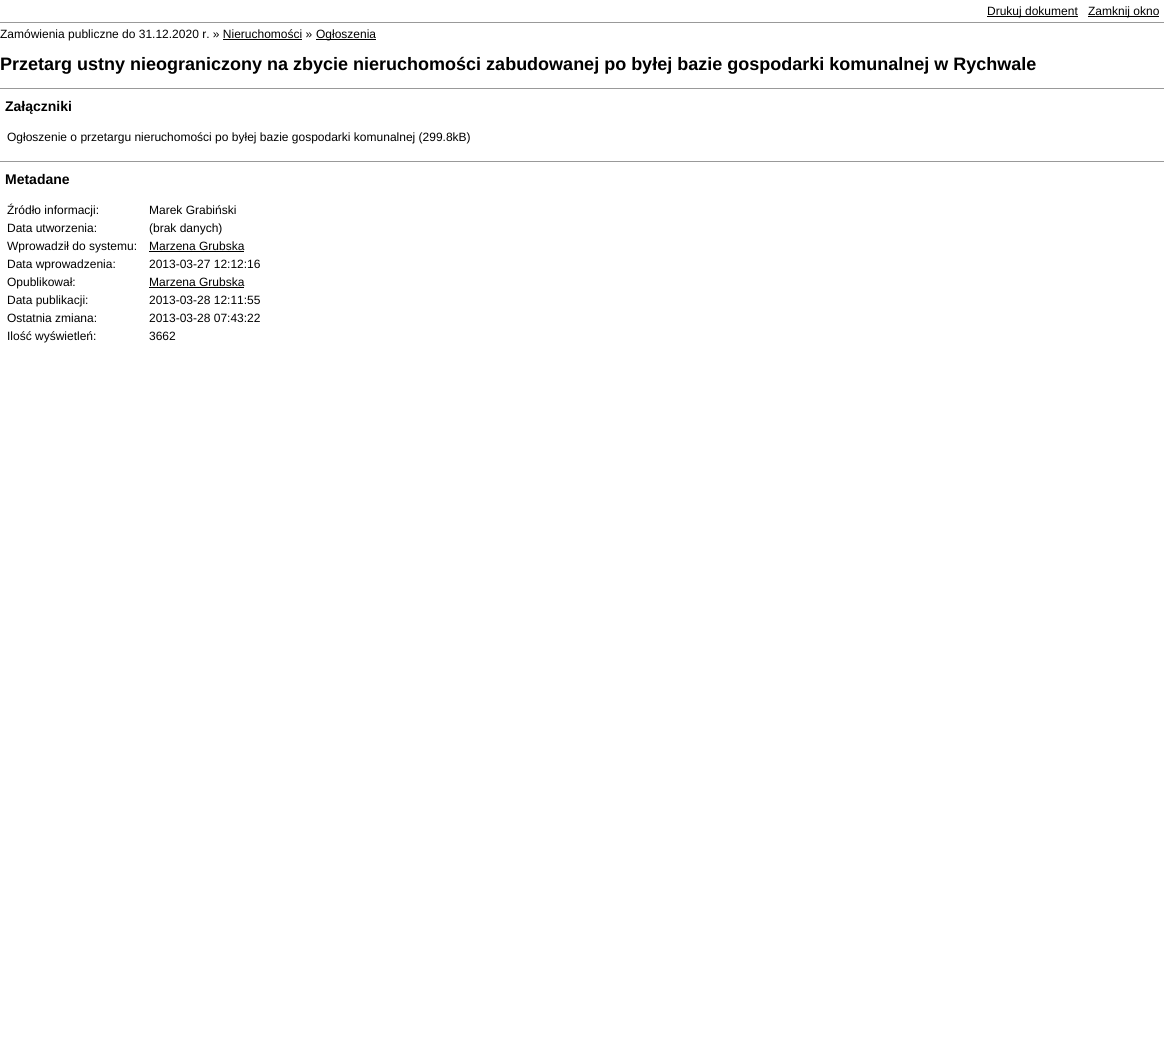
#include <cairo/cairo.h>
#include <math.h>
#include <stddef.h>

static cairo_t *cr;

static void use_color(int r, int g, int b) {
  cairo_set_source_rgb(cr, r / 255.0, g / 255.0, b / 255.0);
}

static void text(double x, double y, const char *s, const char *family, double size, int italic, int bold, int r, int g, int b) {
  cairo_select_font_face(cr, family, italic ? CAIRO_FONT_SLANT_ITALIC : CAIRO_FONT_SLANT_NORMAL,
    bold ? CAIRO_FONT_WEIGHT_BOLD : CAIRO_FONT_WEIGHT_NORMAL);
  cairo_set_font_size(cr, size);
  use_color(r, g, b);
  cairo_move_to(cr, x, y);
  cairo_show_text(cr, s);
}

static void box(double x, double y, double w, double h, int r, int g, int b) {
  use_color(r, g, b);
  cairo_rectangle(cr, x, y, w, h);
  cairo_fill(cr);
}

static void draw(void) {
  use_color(255, 255, 255);
  cairo_paint(cr);
  box(0, 22, 1164, 1, 153, 153, 153);
  box(987, 16, 91, 1, 0, 0, 0);
  box(1088, 16, 71, 1, 0, 0, 0);
  box(316, 39, 60, 1, 0, 0, 0);
  box(223, 39, 79, 1, 0, 0, 0);
  box(0, 88, 1164, 1, 153, 153, 153);
  box(0, 161, 1164, 1, 153, 153, 153);
  box(149, 251, 95, 1, 0, 0, 0);
  box(149, 287, 95, 1, 0, 0, 0);
  text(987, 15, "Drukuj dokument", "Liberation Sans", 12, 0, 0, 0, 0, 0);
  text(1088, 15, "Zamknij okno", "Liberation Sans", 12, 0, 0, 0, 0, 0);
  text(0, 38, "Zamówienia publiczne do 31.12.2020 r. » Nieruchomości »", "Liberation Sans", 12, 0, 0, 0, 0, 0);
  text(316, 38, "Ogłoszenia", "Liberation Sans", 12, 0, 0, 0, 0, 0);
  text(0, 70, "Przetarg ustny nieograniczony na zbycie nieruchomości zabudowanej po byłej bazie gospodarki komunalnej w Rychwale", "Liberation Sans", 18, 0, 1, 0, 0, 0);
  text(5, 111, "Załączniki", "Liberation Sans", 14, 0, 1, 0, 0, 0);
  text(7, 141, "Ogłoszenie o przetargu nieruchomości po byłej bazie gospodarki komunalnej (299.8kB)", "Liberation Sans", 12, 0, 0, 0, 0, 0);
  text(5, 184, "Metadane", "Liberation Sans", 14, 0, 1, 0, 0, 0);
  text(7, 214, "Źródło informacji:", "Liberation Sans", 12, 0, 0, 0, 0, 0);
  text(149, 214, "Marek Grabiński", "Liberation Sans", 12, 0, 0, 0, 0, 0);
  text(7, 232, "Data utworzenia:", "Liberation Sans", 12, 0, 0, 0, 0, 0);
  text(149, 232, "(brak danych)", "Liberation Sans", 12, 0, 0, 0, 0, 0);
  text(7, 250, "Wprowadził do systemu:", "Liberation Sans", 12, 0, 0, 0, 0, 0);
  text(149, 250, "Marzena Grubska", "Liberation Sans", 12, 0, 0, 0, 0, 0);
  text(7, 268, "Data wprowadzenia:", "Liberation Sans", 12, 0, 0, 0, 0, 0);
  text(149, 268, "2013-03-27 12:12:16", "Liberation Sans", 12, 0, 0, 0, 0, 0);
  text(7, 286, "Opublikował:", "Liberation Sans", 12, 0, 0, 0, 0, 0);
  text(149, 286, "Marzena Grubska", "Liberation Sans", 12, 0, 0, 0, 0, 0);
  text(7, 304, "Data publikacji:", "Liberation Sans", 12, 0, 0, 0, 0, 0);
  text(149, 304, "2013-03-28 12:11:55", "Liberation Sans", 12, 0, 0, 0, 0, 0);
  text(7, 322, "Ostatnia zmiana:", "Liberation Sans", 12, 0, 0, 0, 0, 0);
  text(149, 322, "2013-03-28 07:43:22", "Liberation Sans", 12, 0, 0, 0, 0, 0);
  text(7, 340, "Ilość wyświetleń:", "Liberation Sans", 12, 0, 0, 0, 0, 0);
  text(149, 340, "3662", "Liberation Sans", 12, 0, 0, 0, 0, 0);
}

int main(void) {
  cairo_surface_t *surface = cairo_image_surface_create(CAIRO_FORMAT_RGB24, 1164, 1058);
  cr = cairo_create(surface);
  cairo_font_options_t *options = cairo_font_options_create();
  cairo_font_options_set_hint_metrics(options, CAIRO_HINT_METRICS_OFF);
  cairo_font_options_set_hint_style(options, CAIRO_HINT_STYLE_NONE);
  cairo_set_font_options(cr, options);
  cairo_set_miter_limit(cr, 4);
  draw();
  cairo_surface_write_to_png(surface, "out.png");
  cairo_font_options_destroy(options);
  cairo_destroy(cr);
  cairo_surface_destroy(surface);
  return 0;
}
